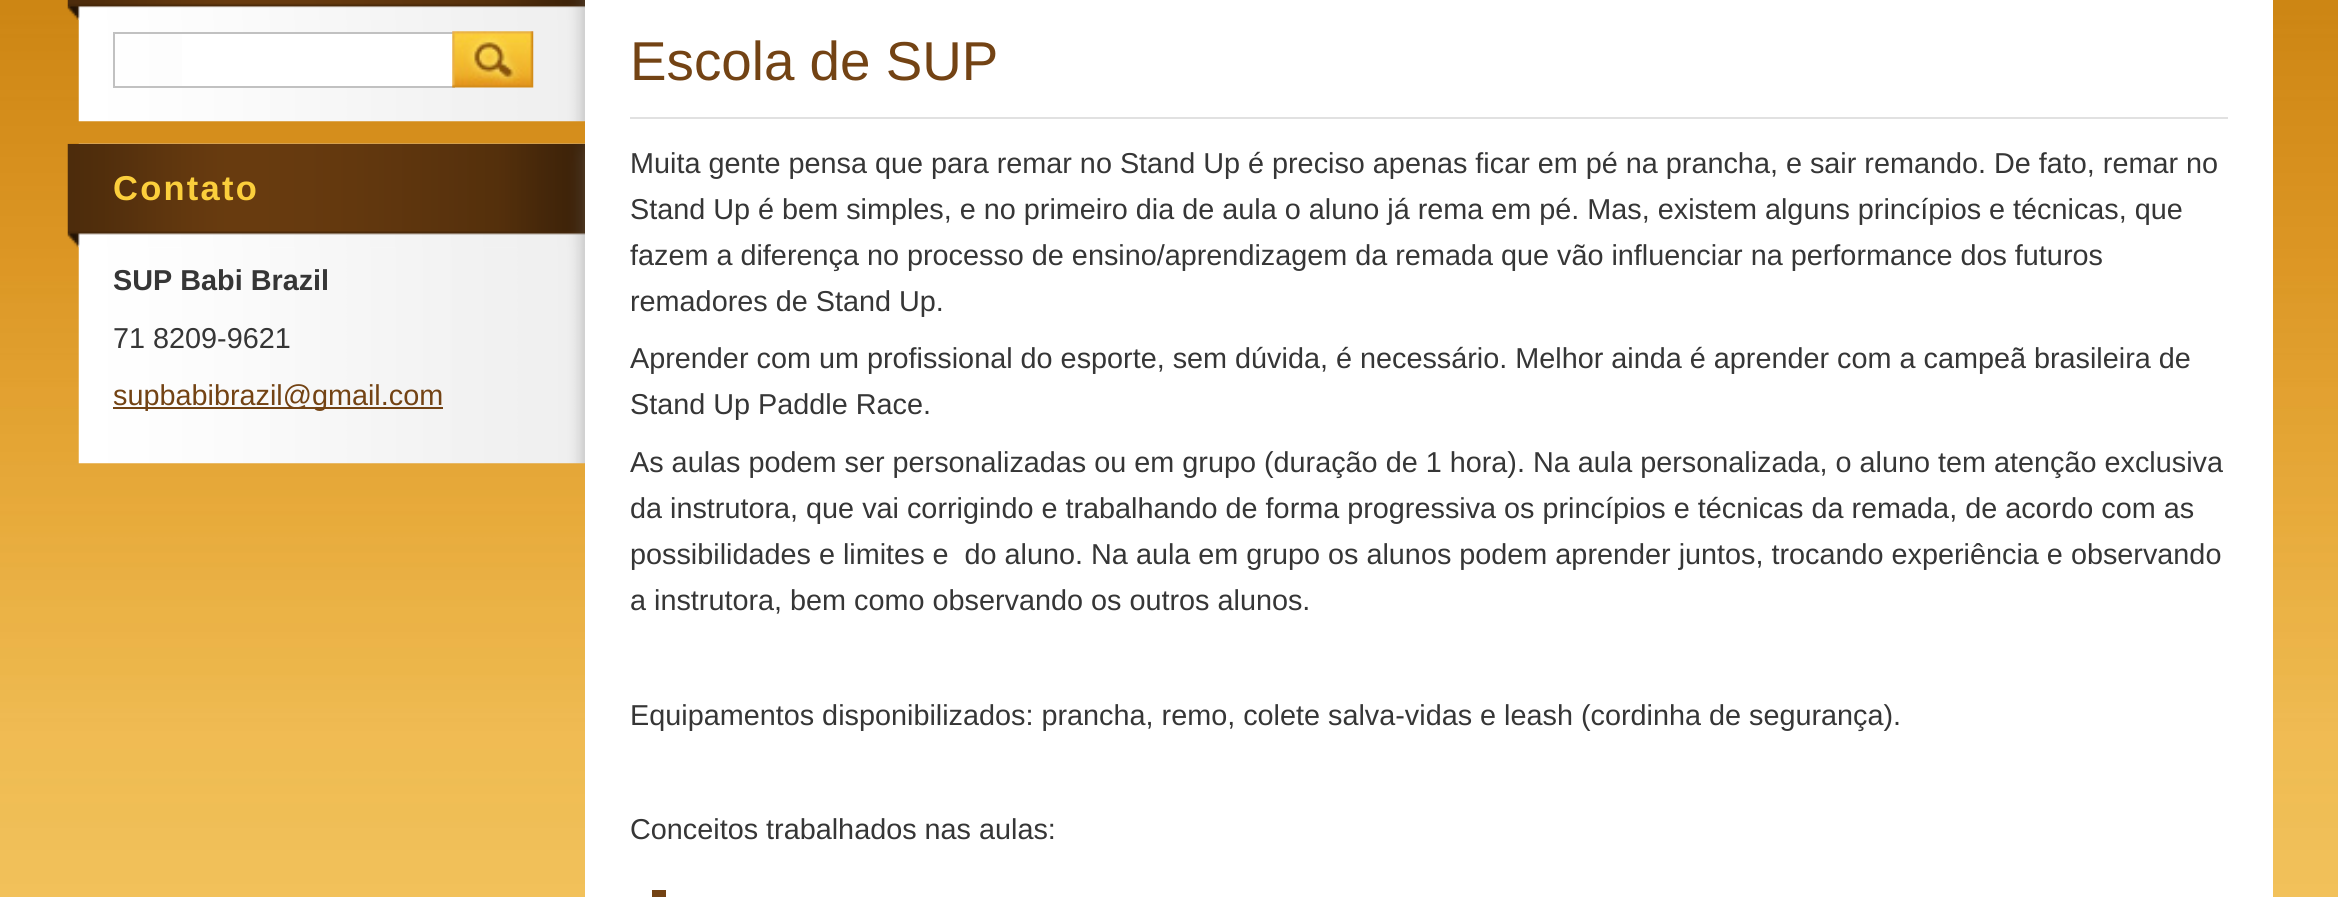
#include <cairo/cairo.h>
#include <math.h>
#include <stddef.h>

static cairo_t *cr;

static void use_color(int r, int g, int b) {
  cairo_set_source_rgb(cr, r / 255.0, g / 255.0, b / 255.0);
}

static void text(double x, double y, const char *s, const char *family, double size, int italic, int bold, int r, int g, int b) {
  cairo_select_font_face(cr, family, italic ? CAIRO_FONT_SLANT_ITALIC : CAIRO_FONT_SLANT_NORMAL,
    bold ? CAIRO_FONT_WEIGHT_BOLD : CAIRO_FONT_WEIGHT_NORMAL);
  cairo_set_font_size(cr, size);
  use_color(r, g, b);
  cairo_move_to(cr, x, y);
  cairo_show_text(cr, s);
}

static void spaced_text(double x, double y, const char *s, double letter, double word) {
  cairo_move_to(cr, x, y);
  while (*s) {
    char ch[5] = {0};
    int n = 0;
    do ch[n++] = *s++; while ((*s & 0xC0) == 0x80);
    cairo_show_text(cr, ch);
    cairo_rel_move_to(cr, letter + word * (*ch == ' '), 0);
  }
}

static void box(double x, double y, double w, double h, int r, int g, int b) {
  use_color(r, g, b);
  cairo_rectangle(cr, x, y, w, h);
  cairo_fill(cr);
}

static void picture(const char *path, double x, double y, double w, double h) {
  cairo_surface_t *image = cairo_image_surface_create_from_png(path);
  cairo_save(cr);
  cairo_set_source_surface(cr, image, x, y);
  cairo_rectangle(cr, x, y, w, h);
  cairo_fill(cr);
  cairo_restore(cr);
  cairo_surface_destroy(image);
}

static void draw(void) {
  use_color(255, 255, 255);
  cairo_paint(cr);
  picture("img_01.png", 0, 0, 2338, 897);
  picture("img_02.png", 78, 6, 507, 116);
  picture("img_03.png", 67, 0, 518, 20);
  box(182, 34, 271, 52, 255, 255, 255);
  cairo_rectangle(cr, 114, 33, 340, 54);
  use_color(193, 193, 193);
  cairo_stroke(cr);
  picture("img_04.png", 452, 31, 82, 57);
  picture("img_05.png", 78, 143, 507, 321);
  picture("img_06.png", 67, 143, 518, 105);
  box(113, 407, 330, 2, 115, 67, 20);
  box(585, 0, 1688, 897, 255, 255, 255);
  box(630, 117, 1598, 2, 225, 225, 225);
  box(652, 890, 14, 7, 115, 67, 20);
  cairo_select_font_face(cr, "Liberation Sans", CAIRO_FONT_SLANT_NORMAL, CAIRO_FONT_WEIGHT_BOLD);
  cairo_set_font_size(cr, 34.5);
  use_color(251, 207, 60);
  spaced_text(113, 200, "Contato", 2.25, 0);
  text(113, 290, "SUP Babi Brazil", "Liberation Sans", 28.8, 0, 1, 54, 54, 54);
  text(113, 348, "71 8209-9621", "Liberation Sans", 28.8, 0, 0, 54, 54, 54);
  text(113, 405, "supbabibrazil@gmail.com", "Liberation Sans", 28.8, 0, 0, 115, 67, 20);
  text(630, 80, "Escola de SUP", "Liberation Sans", 54.75, 0, 0, 115, 67, 20);
  text(630, 173, "Muita gente pensa que para remar no Stand Up é preciso apenas ficar em pé na prancha, e sair remando. De fato, remar no", "Liberation Sans", 28.8, 0, 0, 54, 54, 54);
  text(630, 219, "Stand Up é bem simples, e no primeiro dia de aula o aluno já rema em pé. Mas, existem alguns princípios e técnicas, que", "Liberation Sans", 28.8, 0, 0, 54, 54, 54);
  text(630, 265, "fazem a diferença no processo de ensino/aprendizagem da remada que vão influenciar na performance dos futuros", "Liberation Sans", 28.8, 0, 0, 54, 54, 54);
  text(630, 311, "remadores de Stand Up.", "Liberation Sans", 28.8, 0, 0, 54, 54, 54);
  text(630, 368, "Aprender com um profissional do esporte, sem dúvida, é necessário. Melhor ainda é aprender com a campeã brasileira de", "Liberation Sans", 28.8, 0, 0, 54, 54, 54);
  text(630, 414, "Stand Up Paddle Race.", "Liberation Sans", 28.8, 0, 0, 54, 54, 54);
  text(630, 472, "As aulas podem ser personalizadas ou em grupo (duração de 1 hora). Na aula personalizada, o aluno tem atenção exclusiva", "Liberation Sans", 28.8, 0, 0, 54, 54, 54);
  text(630, 518, "da instrutora, que vai corrigindo e trabalhando de forma progressiva os princípios e técnicas da remada, de acordo com as", "Liberation Sans", 28.8, 0, 0, 54, 54, 54);
  text(630, 564, "possibilidades e limites e  do aluno. Na aula em grupo os alunos podem aprender juntos, trocando experiência e observando", "Liberation Sans", 28.8, 0, 0, 54, 54, 54);
  text(630, 610, "a instrutora, bem como observando os outros alunos.", "Liberation Sans", 28.8, 0, 0, 54, 54, 54);
  text(630, 725, "Equipamentos disponibilizados: prancha, remo, colete salva-vidas e leash (cordinha de segurança).", "Liberation Sans", 28.8, 0, 0, 54, 54, 54);
  text(630, 839, "Conceitos trabalhados nas aulas:", "Liberation Sans", 28.8, 0, 0, 54, 54, 54);
}

int main(void) {
  cairo_surface_t *surface = cairo_image_surface_create(CAIRO_FORMAT_RGB24, 2338, 897);
  cr = cairo_create(surface);
  cairo_font_options_t *options = cairo_font_options_create();
  cairo_font_options_set_hint_metrics(options, CAIRO_HINT_METRICS_OFF);
  cairo_font_options_set_hint_style(options, CAIRO_HINT_STYLE_NONE);
  cairo_set_font_options(cr, options);
  cairo_set_miter_limit(cr, 4);
  draw();
  cairo_surface_write_to_png(surface, "out.png");
  cairo_font_options_destroy(options);
  cairo_destroy(cr);
  cairo_surface_destroy(surface);
  return 0;
}
